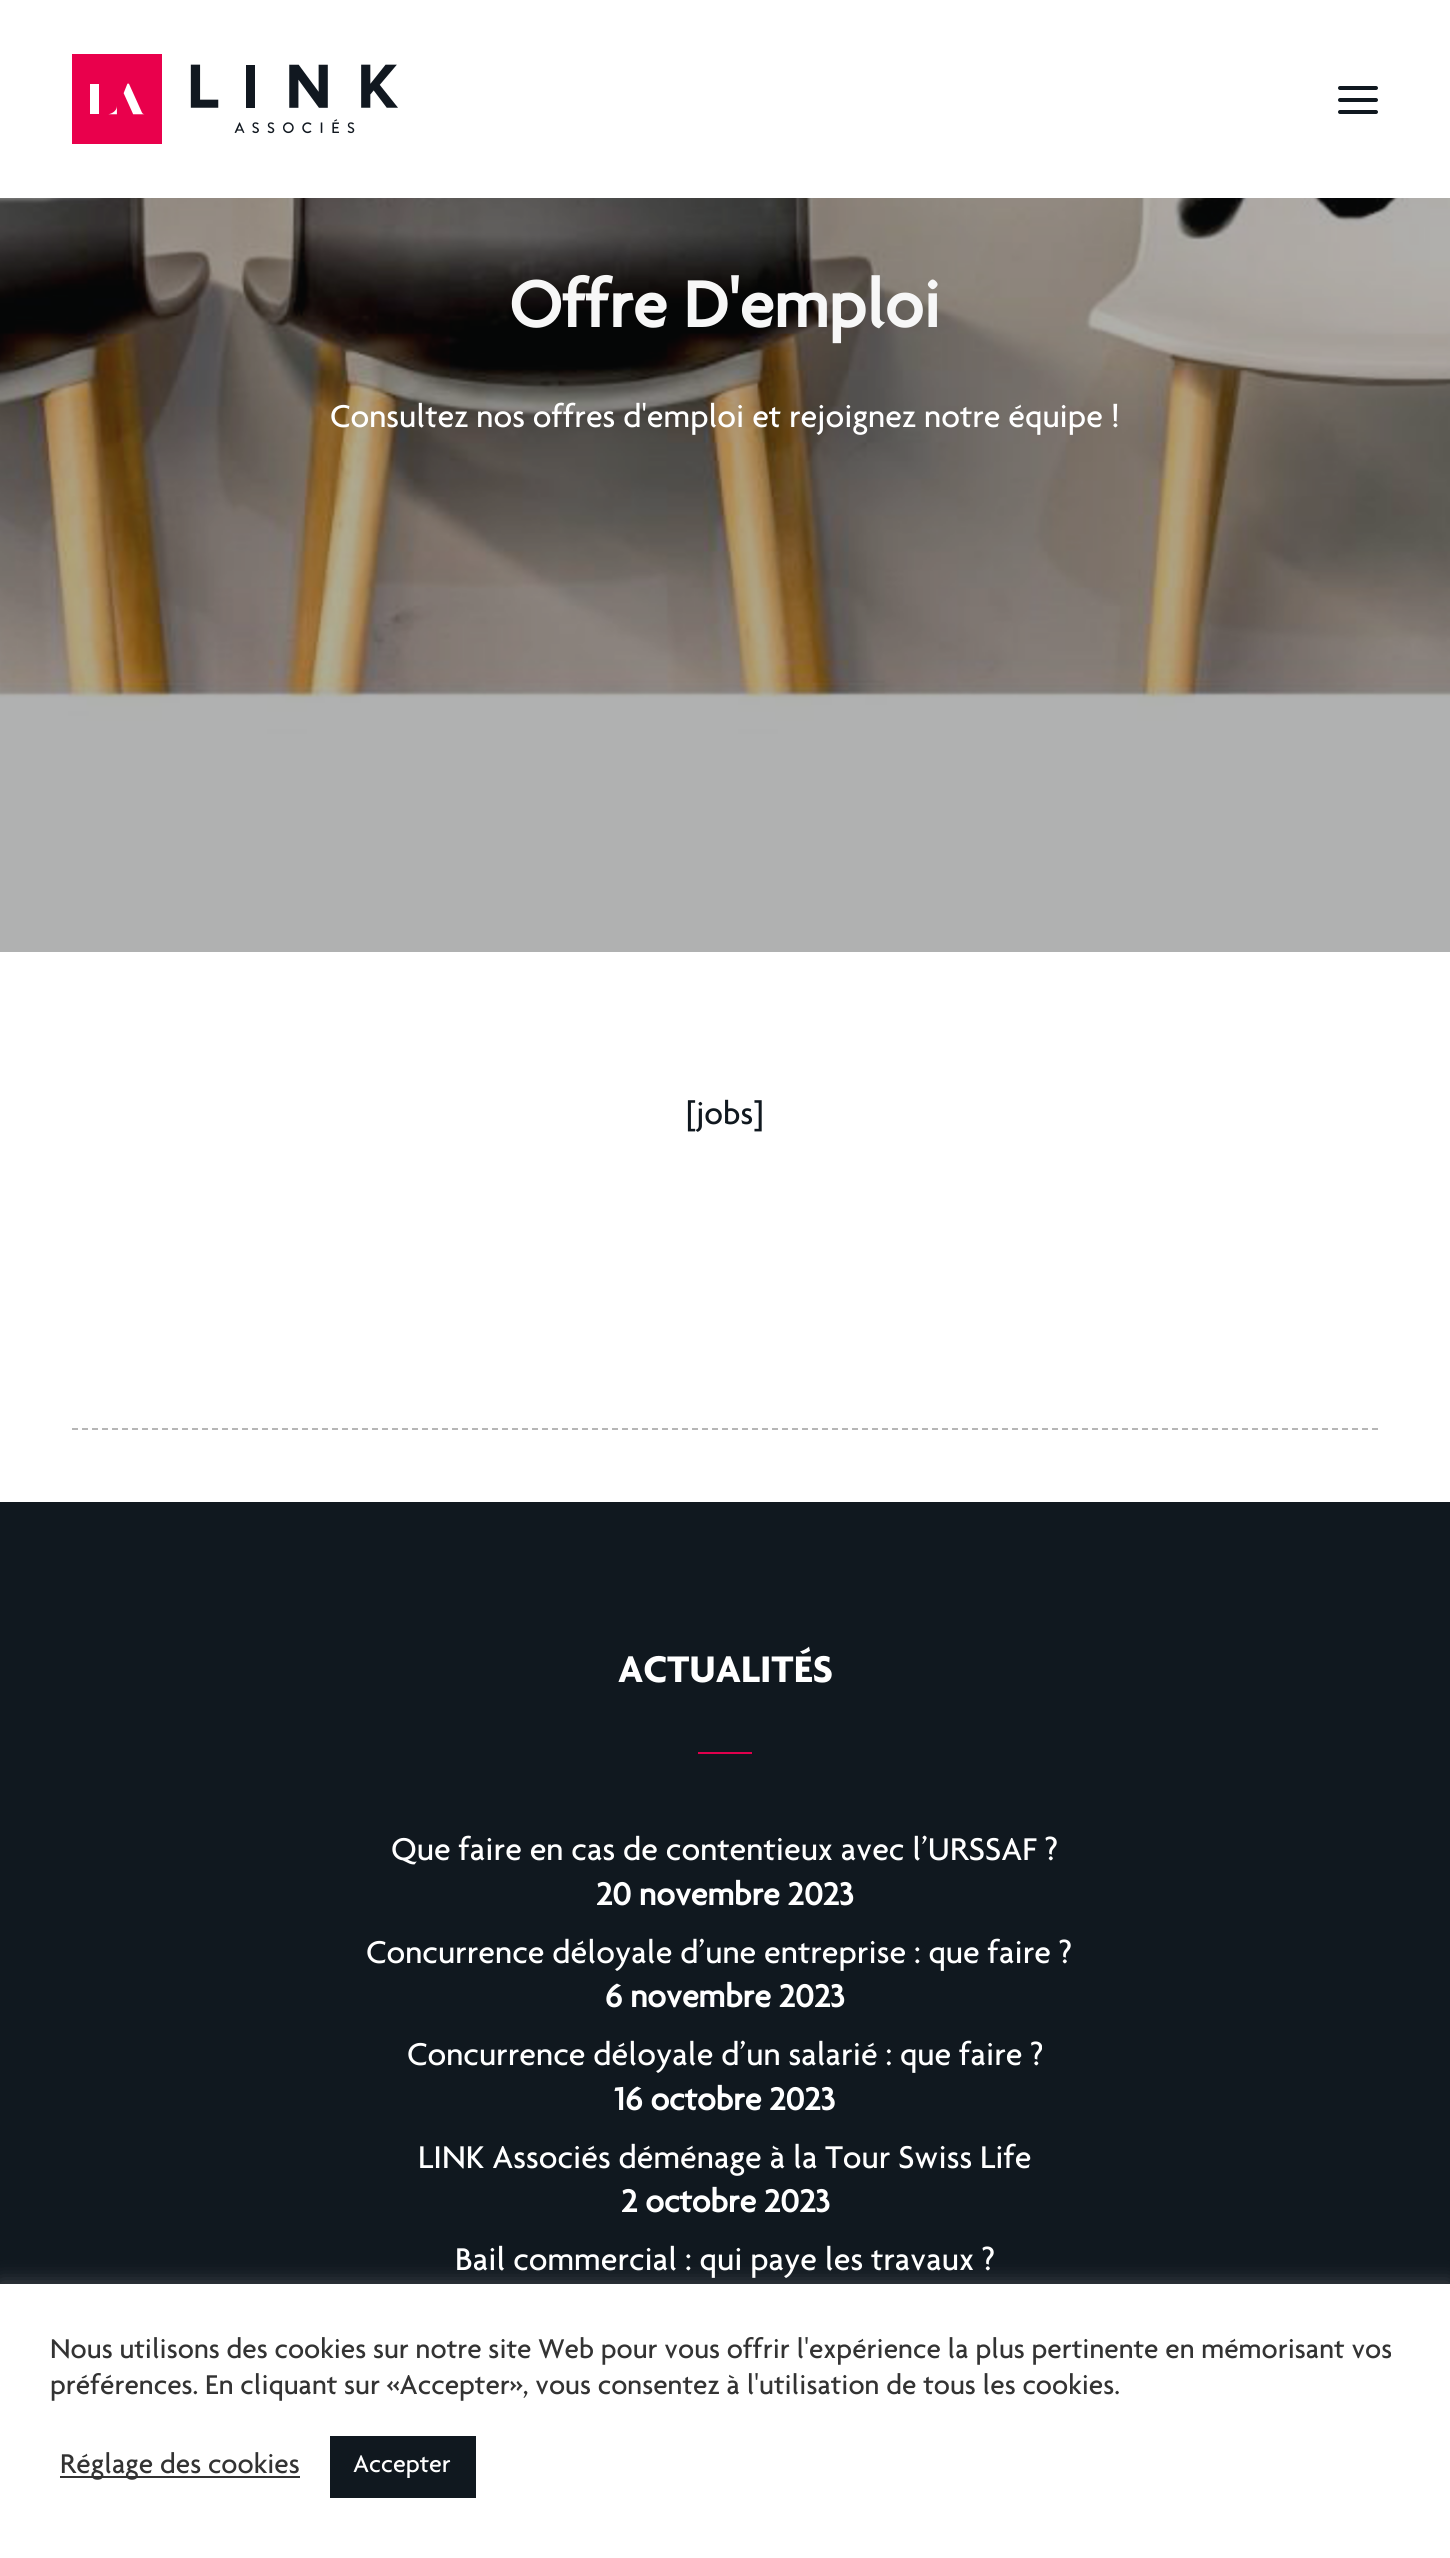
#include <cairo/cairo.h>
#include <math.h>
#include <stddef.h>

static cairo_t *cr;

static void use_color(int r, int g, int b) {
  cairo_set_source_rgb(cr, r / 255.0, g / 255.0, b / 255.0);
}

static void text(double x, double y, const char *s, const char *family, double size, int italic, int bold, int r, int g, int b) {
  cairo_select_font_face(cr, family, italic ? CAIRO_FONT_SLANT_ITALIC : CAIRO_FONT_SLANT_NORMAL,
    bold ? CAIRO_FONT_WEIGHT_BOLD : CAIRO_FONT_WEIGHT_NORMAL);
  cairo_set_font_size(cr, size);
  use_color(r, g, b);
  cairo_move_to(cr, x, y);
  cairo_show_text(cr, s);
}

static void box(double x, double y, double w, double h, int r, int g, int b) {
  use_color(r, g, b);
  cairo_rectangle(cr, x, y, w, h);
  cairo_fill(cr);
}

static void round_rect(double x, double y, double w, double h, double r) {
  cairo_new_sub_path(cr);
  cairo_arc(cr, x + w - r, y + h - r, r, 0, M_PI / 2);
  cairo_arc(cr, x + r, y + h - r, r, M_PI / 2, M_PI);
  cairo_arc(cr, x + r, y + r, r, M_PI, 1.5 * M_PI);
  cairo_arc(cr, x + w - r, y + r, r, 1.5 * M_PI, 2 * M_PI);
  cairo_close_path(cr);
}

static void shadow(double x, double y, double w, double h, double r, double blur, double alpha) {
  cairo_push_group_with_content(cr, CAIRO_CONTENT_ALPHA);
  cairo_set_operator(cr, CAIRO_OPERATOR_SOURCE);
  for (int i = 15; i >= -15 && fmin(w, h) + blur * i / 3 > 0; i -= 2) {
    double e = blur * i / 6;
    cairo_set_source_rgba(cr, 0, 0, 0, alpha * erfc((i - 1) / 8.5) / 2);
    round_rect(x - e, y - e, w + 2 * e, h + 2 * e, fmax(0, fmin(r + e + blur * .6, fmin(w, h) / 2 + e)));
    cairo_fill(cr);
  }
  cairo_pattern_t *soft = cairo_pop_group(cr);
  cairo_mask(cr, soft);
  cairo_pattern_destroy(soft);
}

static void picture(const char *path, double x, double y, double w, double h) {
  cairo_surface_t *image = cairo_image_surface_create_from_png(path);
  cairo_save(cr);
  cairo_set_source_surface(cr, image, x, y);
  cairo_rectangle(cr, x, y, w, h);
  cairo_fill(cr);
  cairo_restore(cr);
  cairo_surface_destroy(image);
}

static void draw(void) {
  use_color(255, 255, 255);
  cairo_paint(cr);
  picture("img_01.png", 72, 54, 326, 90);
  use_color(16, 24, 31);
  round_rect(1338, 98, 40, 4, 2);
  cairo_fill(cr);
  round_rect(1338, 86, 40, 4, 2);
  cairo_fill(cr);
  round_rect(1338, 110, 40, 4, 2);
  cairo_fill(cr);
  picture("img_02.png", 0, 198, 1450, 754);
  cairo_new_path(cr);
  cairo_move_to(cr, 72, 1429);
  cairo_line_to(cr, 1378, 1429);
  use_color(182, 182, 182);
  cairo_set_dash(cr, (double[]){6, 4}, 2, 0);
  cairo_stroke(cr);
  box(0, 1502, 1450, 782, 16, 24, 31);
  box(698, 1752, 54, 2, 224, 0, 77);
  use_color(172, 171, 171);
  shadow(0, 2282, 1450, 274, 0, 10, 0.3);
  box(0, 2284, 1450, 274, 255, 255, 255);
  box(60, 2476, 240, 2, 51, 51, 51);
  box(330, 2436, 146, 62, 16, 24, 31);
  text(509, 327, "Offre D'emploi", "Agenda", 70, 0, 1, 247, 247, 247);
  text(330, 427, "Consultez nos offres d'emploi et rejoignez notre équipe !", "Agenda Medium", 34, 0, 0, 255, 255, 255);
  text(686, 1124, "[jobs]", "Agenda Medium", 34, 0, 0, 16, 24, 31);
  text(618, 1682, "ACTUALITÉS", "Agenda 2", 40, 0, 1, 255, 255, 255);
  text(391, 1860, "Que faire en cas de contentieux avec l’URSSAF ?", "Agenda Medium", 34, 0, 0, 255, 255, 255);
  text(596, 1905, "20 novembre 2023", "Agenda", 34, 0, 1, 255, 255, 255);
  text(366, 1963, "Concurrence déloyale d’une entreprise : que faire ?", "Agenda Medium", 34, 0, 0, 255, 255, 255);
  text(605, 2007, "6 novembre 2023", "Agenda", 34, 0, 1, 255, 255, 255);
  text(407, 2065, "Concurrence déloyale d’un salarié : que faire ?", "Agenda Medium", 34, 0, 0, 255, 255, 255);
  text(614, 2110, "16 octobre 2023", "Agenda", 34, 0, 1, 255, 255, 255);
  text(418, 2168, "LINK Associés déménage à la Tour Swiss Life", "Agenda Medium", 34, 0, 0, 255, 255, 255);
  text(621, 2212, "2 octobre 2023", "Agenda", 34, 0, 1, 255, 255, 255);
  text(455, 2270, "Bail commercial : qui paye les travaux ?", "Agenda Medium", 34, 0, 0, 255, 255, 255);
  text(50, 2358, "Nous utilisons des cookies sur notre site Web pour vous offrir l'expérience la plus pertinente en mémorisant vos", "Agenda Medium", 29.35, 0, 0, 51, 51, 51);
  text(50, 2394, "préférences. En cliquant sur «Accepter», vous consentez à l'utilisation de tous les cookies.", "Agenda Medium", 29.35, 0, 0, 51, 51, 51);
  text(60, 2473, "Réglage des cookies", "Agenda Medium", 29.35, 0, 0, 51, 51, 51);
  text(353, 2472, "Accepter", "Agenda Medium", 26, 0, 0, 255, 255, 255);
}

int main(void) {
  cairo_surface_t *surface = cairo_image_surface_create(CAIRO_FORMAT_RGB24, 1450, 2558);
  cr = cairo_create(surface);
  cairo_font_options_t *options = cairo_font_options_create();
  cairo_font_options_set_hint_metrics(options, CAIRO_HINT_METRICS_OFF);
  cairo_font_options_set_hint_style(options, CAIRO_HINT_STYLE_NONE);
  cairo_set_font_options(cr, options);
  cairo_set_miter_limit(cr, 4);
  draw();
  cairo_surface_write_to_png(surface, "out.png");
  cairo_font_options_destroy(options);
  cairo_destroy(cr);
  cairo_surface_destroy(surface);
  return 0;
}
